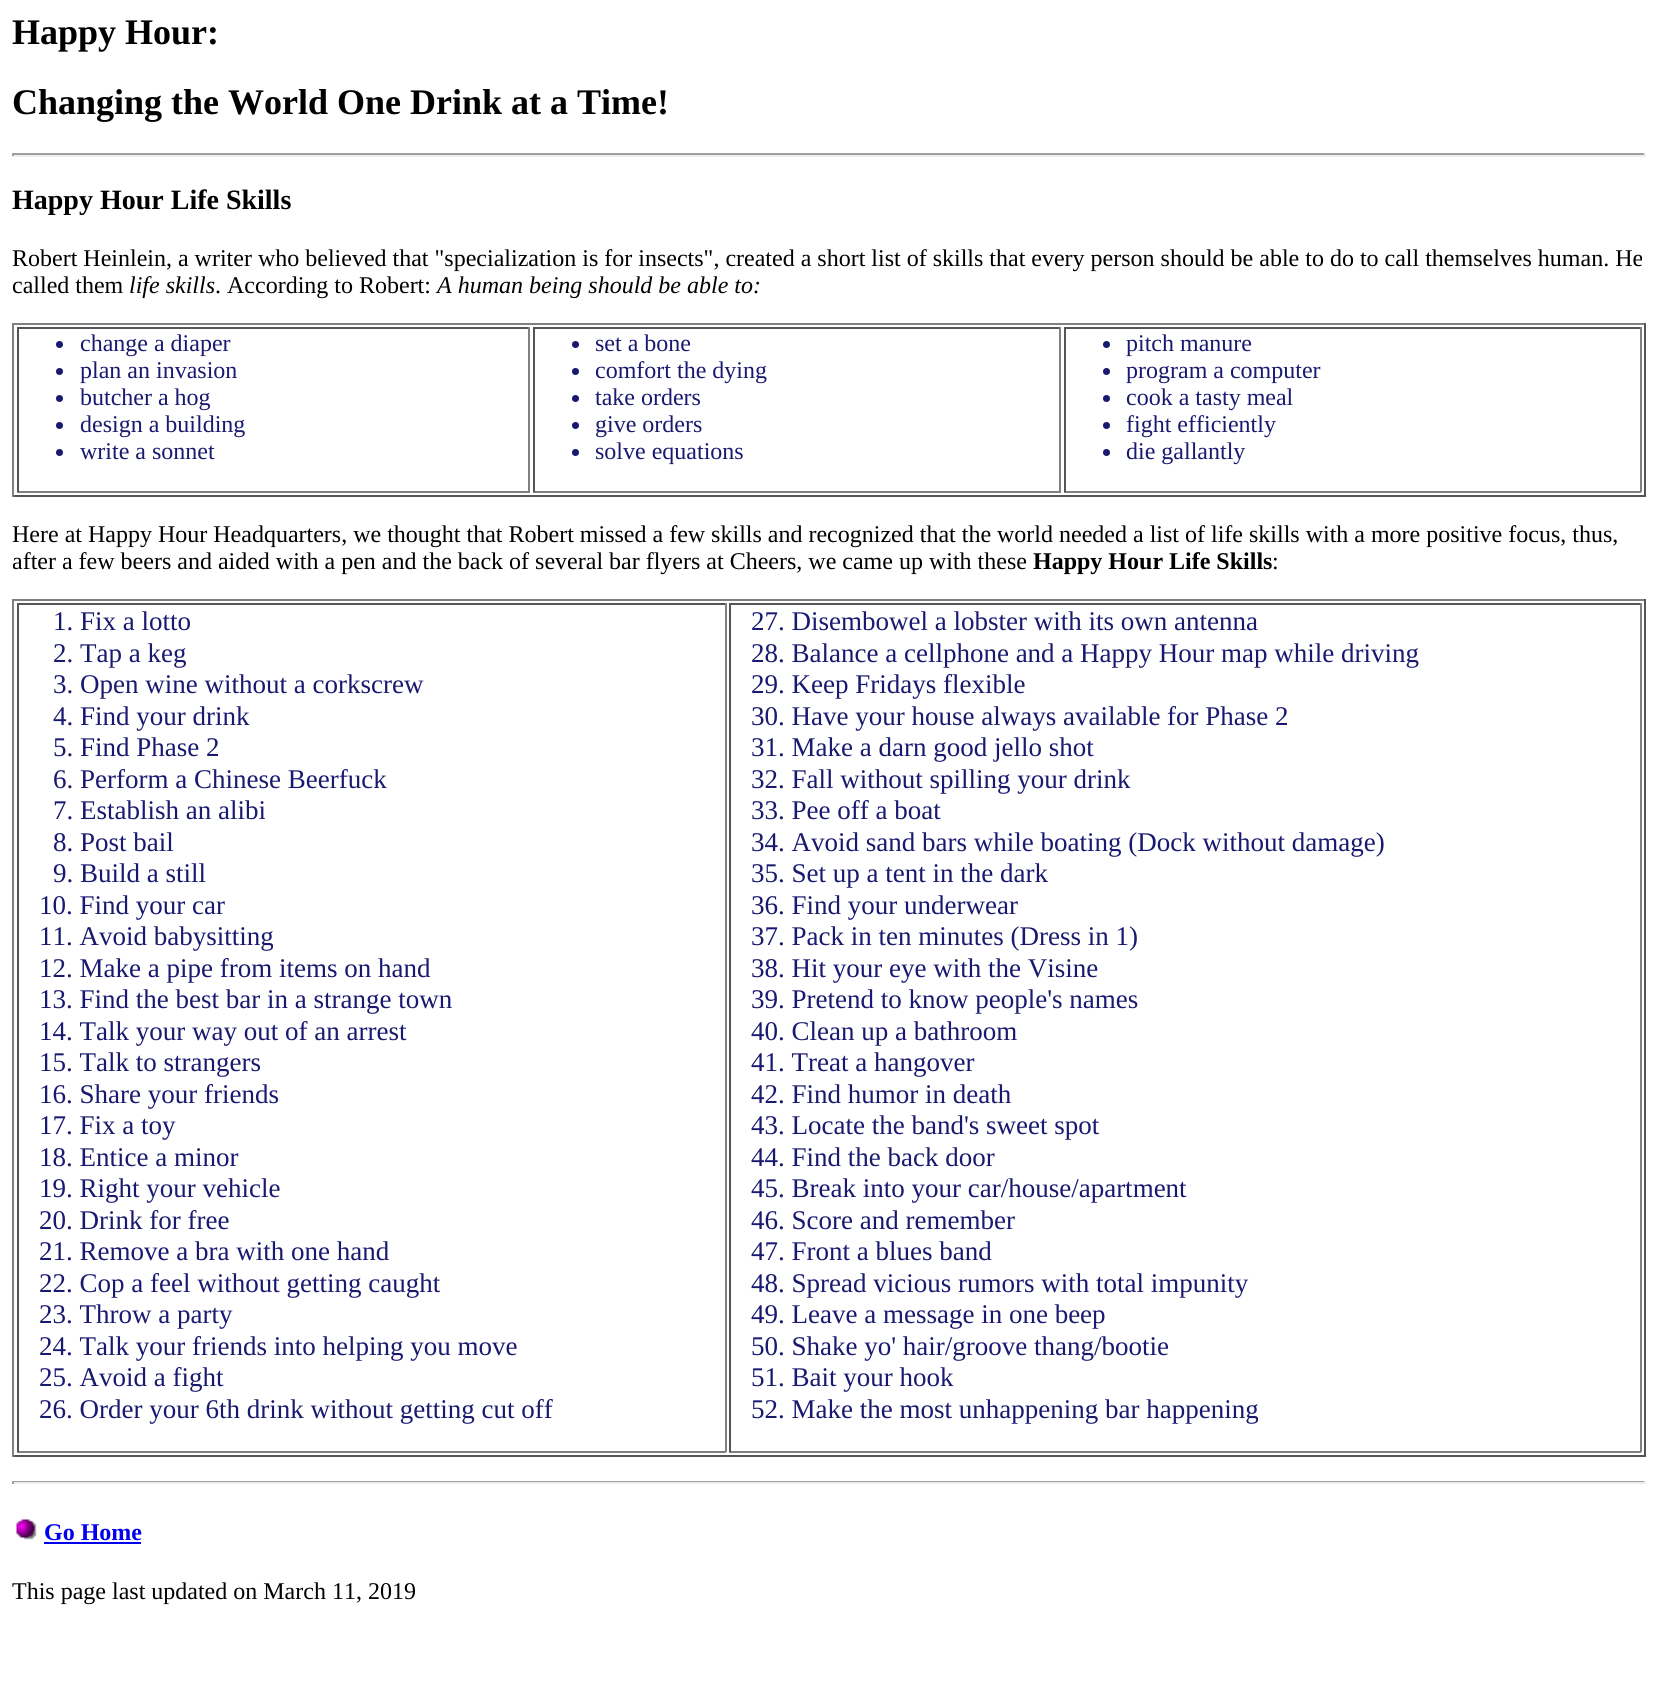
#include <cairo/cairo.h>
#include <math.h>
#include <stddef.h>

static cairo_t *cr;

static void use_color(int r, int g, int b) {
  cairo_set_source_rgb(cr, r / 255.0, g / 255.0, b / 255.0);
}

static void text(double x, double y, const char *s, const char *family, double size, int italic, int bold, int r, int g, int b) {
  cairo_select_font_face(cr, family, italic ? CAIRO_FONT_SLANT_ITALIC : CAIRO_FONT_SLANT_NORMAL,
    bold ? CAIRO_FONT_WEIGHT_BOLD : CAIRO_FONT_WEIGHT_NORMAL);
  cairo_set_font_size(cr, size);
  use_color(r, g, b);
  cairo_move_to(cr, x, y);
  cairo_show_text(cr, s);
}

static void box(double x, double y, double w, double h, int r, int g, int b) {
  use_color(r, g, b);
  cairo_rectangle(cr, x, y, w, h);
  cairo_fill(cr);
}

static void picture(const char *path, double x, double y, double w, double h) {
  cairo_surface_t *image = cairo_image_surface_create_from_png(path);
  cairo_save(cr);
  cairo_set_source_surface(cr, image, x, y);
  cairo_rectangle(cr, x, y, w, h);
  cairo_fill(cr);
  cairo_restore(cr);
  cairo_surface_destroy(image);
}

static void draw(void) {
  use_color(255, 255, 255);
  cairo_paint(cr);
  box(12, 153, 1634, 2, 159, 159, 159);
  box(1644, 153, 2, 3, 238, 238, 238);
  box(12, 155, 1634, 2, 238, 238, 238);
  box(12, 153, 2, 3, 159, 159, 159);
  box(12, 323, 1634, 2, 128, 128, 128);
  box(1644, 323, 2, 174, 85, 85, 85);
  box(12, 495, 1634, 2, 85, 85, 85);
  box(12, 323, 2, 174, 128, 128, 128);
  box(17, 327, 513, 2, 85, 85, 85);
  box(528, 327, 2, 165, 128, 128, 128);
  box(17, 491, 513, 2, 128, 128, 128);
  box(17, 327, 2, 165, 85, 85, 85);
  use_color(25, 25, 112);
  cairo_arc(cr, 59.5, 344.5, 3.5, 0, 2 * M_PI);
  cairo_fill(cr);
  cairo_arc(cr, 59.5, 371.5, 3.5, 0, 2 * M_PI);
  cairo_fill(cr);
  cairo_arc(cr, 59.5, 398.5, 3.5, 0, 2 * M_PI);
  cairo_fill(cr);
  cairo_arc(cr, 59.5, 425.5, 3.5, 0, 2 * M_PI);
  cairo_fill(cr);
  cairo_arc(cr, 59.5, 452.5, 3.5, 0, 2 * M_PI);
  cairo_fill(cr);
  box(533, 327, 528, 2, 85, 85, 85);
  box(1059, 327, 2, 165, 128, 128, 128);
  box(533, 491, 528, 2, 128, 128, 128);
  box(533, 327, 2, 165, 85, 85, 85);
  use_color(25, 25, 112);
  cairo_arc(cr, 575.5, 344.5, 3.5, 0, 2 * M_PI);
  cairo_fill(cr);
  cairo_arc(cr, 575.5, 371.5, 3.5, 0, 2 * M_PI);
  cairo_fill(cr);
  cairo_arc(cr, 575.5, 398.5, 3.5, 0, 2 * M_PI);
  cairo_fill(cr);
  cairo_arc(cr, 575.5, 425.5, 3.5, 0, 2 * M_PI);
  cairo_fill(cr);
  cairo_arc(cr, 575.5, 452.5, 3.5, 0, 2 * M_PI);
  cairo_fill(cr);
  box(1064, 327, 577, 2, 85, 85, 85);
  box(1640, 327, 2, 165, 128, 128, 128);
  box(1064, 491, 577, 2, 128, 128, 128);
  box(1064, 327, 2, 165, 85, 85, 85);
  use_color(25, 25, 112);
  cairo_arc(cr, 1106.5, 344.5, 3.5, 0, 2 * M_PI);
  cairo_fill(cr);
  cairo_arc(cr, 1106.5, 371.5, 3.5, 0, 2 * M_PI);
  cairo_fill(cr);
  cairo_arc(cr, 1106.5, 398.5, 3.5, 0, 2 * M_PI);
  cairo_fill(cr);
  cairo_arc(cr, 1106.5, 425.5, 3.5, 0, 2 * M_PI);
  cairo_fill(cr);
  cairo_arc(cr, 1106.5, 452.5, 3.5, 0, 2 * M_PI);
  cairo_fill(cr);
  box(12, 599, 1634, 2, 128, 128, 128);
  box(1644, 599, 2, 858, 85, 85, 85);
  box(12, 1455, 1634, 2, 85, 85, 85);
  box(12, 599, 2, 858, 128, 128, 128);
  box(17, 603, 709, 2, 85, 85, 85);
  box(725, 603, 2, 849, 128, 128, 128);
  box(17, 1451, 709, 2, 128, 128, 128);
  box(17, 603, 2, 849, 85, 85, 85);
  box(729, 603, 912, 2, 85, 85, 85);
  box(1640, 603, 2, 849, 128, 128, 128);
  box(729, 1451, 912, 2, 128, 128, 128);
  box(729, 603, 2, 849, 85, 85, 85);
  box(12, 1481, 1634, 1, 159, 159, 159);
  box(1644, 1481, 2, 3, 238, 238, 238);
  box(12, 1482, 1634, 2, 238, 238, 238);
  box(12, 1481, 2, 3, 159, 159, 159);
  picture("img_01.png", 16, 1519, 21, 21);
  box(44, 1542, 97, 2, 0, 0, 238);
  text(12, 44, "Happy Hour:", "Liberation Serif", 36, 0, 1, 0, 0, 0);
  text(12, 114, "Changing the World One Drink at a Time!", "Liberation Serif", 36, 0, 1, 0, 0, 0);
  text(12, 209, "Happy Hour Life Skills", "Liberation Serif", 28, 0, 1, 0, 0, 0);
  text(12, 266, "Robert Heinlein, a writer who believed that \"specialization is for insects\", created a short list of skills that every person should be able to do to call themselves human. He", "Liberation Serif", 24, 0, 0, 0, 0, 0);
  text(12, 293, "called them", "Liberation Serif", 24, 0, 0, 0, 0, 0);
  text(129, 293, "life skills", "Liberation Serif", 24, 1, 0, 0, 0, 0);
  text(215, 293, ". According to Robert:", "Liberation Serif", 24, 0, 0, 0, 0, 0);
  text(437, 293, "A human being should be able to:", "Liberation Serif", 24, 1, 0, 0, 0, 0);
  text(80, 351, "change a diaper", "Liberation Serif", 24, 0, 0, 25, 25, 112);
  text(80, 378, "plan an invasion", "Liberation Serif", 24, 0, 0, 25, 25, 112);
  text(80, 405, "butcher a hog", "Liberation Serif", 24, 0, 0, 25, 25, 112);
  text(80, 432, "design a building", "Liberation Serif", 24, 0, 0, 25, 25, 112);
  text(80, 459, "write a sonnet", "Liberation Serif", 24, 0, 0, 25, 25, 112);
  text(595, 351, "set a bone", "Liberation Serif", 24, 0, 0, 25, 25, 112);
  text(595, 378, "comfort the dying", "Liberation Serif", 24, 0, 0, 25, 25, 112);
  text(595, 405, "take orders", "Liberation Serif", 24, 0, 0, 25, 25, 112);
  text(595, 432, "give orders", "Liberation Serif", 24, 0, 0, 25, 25, 112);
  text(595, 459, "solve equations", "Liberation Serif", 24, 0, 0, 25, 25, 112);
  text(1126, 351, "pitch manure", "Liberation Serif", 24, 0, 0, 25, 25, 112);
  text(1126, 378, "program a computer", "Liberation Serif", 24, 0, 0, 25, 25, 112);
  text(1126, 405, "cook a tasty meal", "Liberation Serif", 24, 0, 0, 25, 25, 112);
  text(1126, 432, "fight efficiently", "Liberation Serif", 24, 0, 0, 25, 25, 112);
  text(1126, 459, "die gallantly", "Liberation Serif", 24, 0, 0, 25, 25, 112);
  text(12, 542, "Here at Happy Hour Headquarters, we thought that Robert missed a few skills and recognized that the world needed a list of life skills with a more positive focus, thus,", "Liberation Serif", 24, 0, 0, 0, 0, 0);
  text(12, 569, "after a few beers and aided with a pen and the back of several bar flyers at Cheers, we came up with these", "Liberation Serif", 24, 0, 0, 0, 0, 0);
  text(1033, 569, "Happy Hour Life Skills", "Liberation Serif", 24, 0, 1, 0, 0, 0);
  text(1272, 569, ":", "Liberation Serif", 24, 0, 0, 0, 0, 0);
  text(53, 630, "1. Fix a lotto", "Liberation Serif", 27, 0, 0, 25, 25, 112);
  text(53, 662, "2. Tap a keg", "Liberation Serif", 27, 0, 0, 25, 25, 112);
  text(53, 693, "3. Open wine without a corkscrew", "Liberation Serif", 27, 0, 0, 25, 25, 112);
  text(53, 725, "4. Find your drink", "Liberation Serif", 27, 0, 0, 25, 25, 112);
  text(53, 756, "5. Find Phase 2", "Liberation Serif", 27, 0, 0, 25, 25, 112);
  text(53, 788, "6. Perform a Chinese Beerfuck", "Liberation Serif", 27, 0, 0, 25, 25, 112);
  text(53, 819, "7. Establish an alibi", "Liberation Serif", 27, 0, 0, 25, 25, 112);
  text(53, 851, "8. Post bail", "Liberation Serif", 27, 0, 0, 25, 25, 112);
  text(53, 882, "9. Build a still", "Liberation Serif", 27, 0, 0, 25, 25, 112);
  text(39, 914, "10. Find your car", "Liberation Serif", 27, 0, 0, 25, 25, 112);
  text(39, 945, "11. Avoid babysitting", "Liberation Serif", 27, 0, 0, 25, 25, 112);
  text(39, 977, "12. Make a pipe from items on hand", "Liberation Serif", 27, 0, 0, 25, 25, 112);
  text(39, 1008, "13. Find the best bar in a strange town", "Liberation Serif", 27, 0, 0, 25, 25, 112);
  text(39, 1040, "14. Talk your way out of an arrest", "Liberation Serif", 27, 0, 0, 25, 25, 112);
  text(39, 1071, "15. Talk to strangers", "Liberation Serif", 27, 0, 0, 25, 25, 112);
  text(39, 1103, "16. Share your friends", "Liberation Serif", 27, 0, 0, 25, 25, 112);
  text(39, 1134, "17. Fix a toy", "Liberation Serif", 27, 0, 0, 25, 25, 112);
  text(39, 1166, "18. Entice a minor", "Liberation Serif", 27, 0, 0, 25, 25, 112);
  text(39, 1197, "19. Right your vehicle", "Liberation Serif", 27, 0, 0, 25, 25, 112);
  text(39, 1229, "20. Drink for free", "Liberation Serif", 27, 0, 0, 25, 25, 112);
  text(39, 1260, "21. Remove a bra with one hand", "Liberation Serif", 27, 0, 0, 25, 25, 112);
  text(39, 1292, "22. Cop a feel without getting caught", "Liberation Serif", 27, 0, 0, 25, 25, 112);
  text(39, 1323, "23. Throw a party", "Liberation Serif", 27, 0, 0, 25, 25, 112);
  text(39, 1355, "24. Talk your friends into helping you move", "Liberation Serif", 27, 0, 0, 25, 25, 112);
  text(39, 1386, "25. Avoid a fight", "Liberation Serif", 27, 0, 0, 25, 25, 112);
  text(39, 1418, "26. Order your 6th drink without getting cut off", "Liberation Serif", 27, 0, 0, 25, 25, 112);
  text(751, 630, "27. Disembowel a lobster with its own antenna", "Liberation Serif", 27, 0, 0, 25, 25, 112);
  text(751, 662, "28. Balance a cellphone and a Happy Hour map while driving", "Liberation Serif", 27, 0, 0, 25, 25, 112);
  text(751, 693, "29. Keep Fridays flexible", "Liberation Serif", 27, 0, 0, 25, 25, 112);
  text(751, 725, "30. Have your house always available for Phase 2", "Liberation Serif", 27, 0, 0, 25, 25, 112);
  text(751, 756, "31. Make a darn good jello shot", "Liberation Serif", 27, 0, 0, 25, 25, 112);
  text(751, 788, "32. Fall without spilling your drink", "Liberation Serif", 27, 0, 0, 25, 25, 112);
  text(751, 819, "33. Pee off a boat", "Liberation Serif", 27, 0, 0, 25, 25, 112);
  text(751, 851, "34. Avoid sand bars while boating (Dock without damage)", "Liberation Serif", 27, 0, 0, 25, 25, 112);
  text(751, 882, "35. Set up a tent in the dark", "Liberation Serif", 27, 0, 0, 25, 25, 112);
  text(751, 914, "36. Find your underwear", "Liberation Serif", 27, 0, 0, 25, 25, 112);
  text(751, 945, "37. Pack in ten minutes (Dress in 1)", "Liberation Serif", 27, 0, 0, 25, 25, 112);
  text(751, 977, "38. Hit your eye with the Visine", "Liberation Serif", 27, 0, 0, 25, 25, 112);
  text(751, 1008, "39. Pretend to know people's names", "Liberation Serif", 27, 0, 0, 25, 25, 112);
  text(751, 1040, "40. Clean up a bathroom", "Liberation Serif", 27, 0, 0, 25, 25, 112);
  text(751, 1071, "41. Treat a hangover", "Liberation Serif", 27, 0, 0, 25, 25, 112);
  text(751, 1103, "42. Find humor in death", "Liberation Serif", 27, 0, 0, 25, 25, 112);
  text(751, 1134, "43. Locate the band's sweet spot", "Liberation Serif", 27, 0, 0, 25, 25, 112);
  text(751, 1166, "44. Find the back door", "Liberation Serif", 27, 0, 0, 25, 25, 112);
  text(751, 1197, "45. Break into your car/house/apartment", "Liberation Serif", 27, 0, 0, 25, 25, 112);
  text(751, 1229, "46. Score and remember", "Liberation Serif", 27, 0, 0, 25, 25, 112);
  text(751, 1260, "47. Front a blues band", "Liberation Serif", 27, 0, 0, 25, 25, 112);
  text(751, 1292, "48. Spread vicious rumors with total impunity", "Liberation Serif", 27, 0, 0, 25, 25, 112);
  text(751, 1323, "49. Leave a message in one beep", "Liberation Serif", 27, 0, 0, 25, 25, 112);
  text(751, 1355, "50. Shake yo' hair/groove thang/bootie", "Liberation Serif", 27, 0, 0, 25, 25, 112);
  text(751, 1386, "51. Bait your hook", "Liberation Serif", 27, 0, 0, 25, 25, 112);
  text(751, 1418, "52. Make the most unhappening bar happening", "Liberation Serif", 27, 0, 0, 25, 25, 112);
  text(44, 1540, "Go Home", "Liberation Serif", 24, 0, 1, 0, 0, 238);
  text(12, 1599, "This page last updated on March 11, 2019", "Liberation Serif", 24, 0, 0, 0, 0, 0);
}

int main(void) {
  cairo_surface_t *surface = cairo_image_surface_create(CAIRO_FORMAT_RGB24, 1657, 1686);
  cr = cairo_create(surface);
  cairo_font_options_t *options = cairo_font_options_create();
  cairo_font_options_set_hint_metrics(options, CAIRO_HINT_METRICS_OFF);
  cairo_font_options_set_hint_style(options, CAIRO_HINT_STYLE_NONE);
  cairo_set_font_options(cr, options);
  cairo_set_miter_limit(cr, 4);
  draw();
  cairo_surface_write_to_png(surface, "out.png");
  cairo_font_options_destroy(options);
  cairo_destroy(cr);
  cairo_surface_destroy(surface);
  return 0;
}
